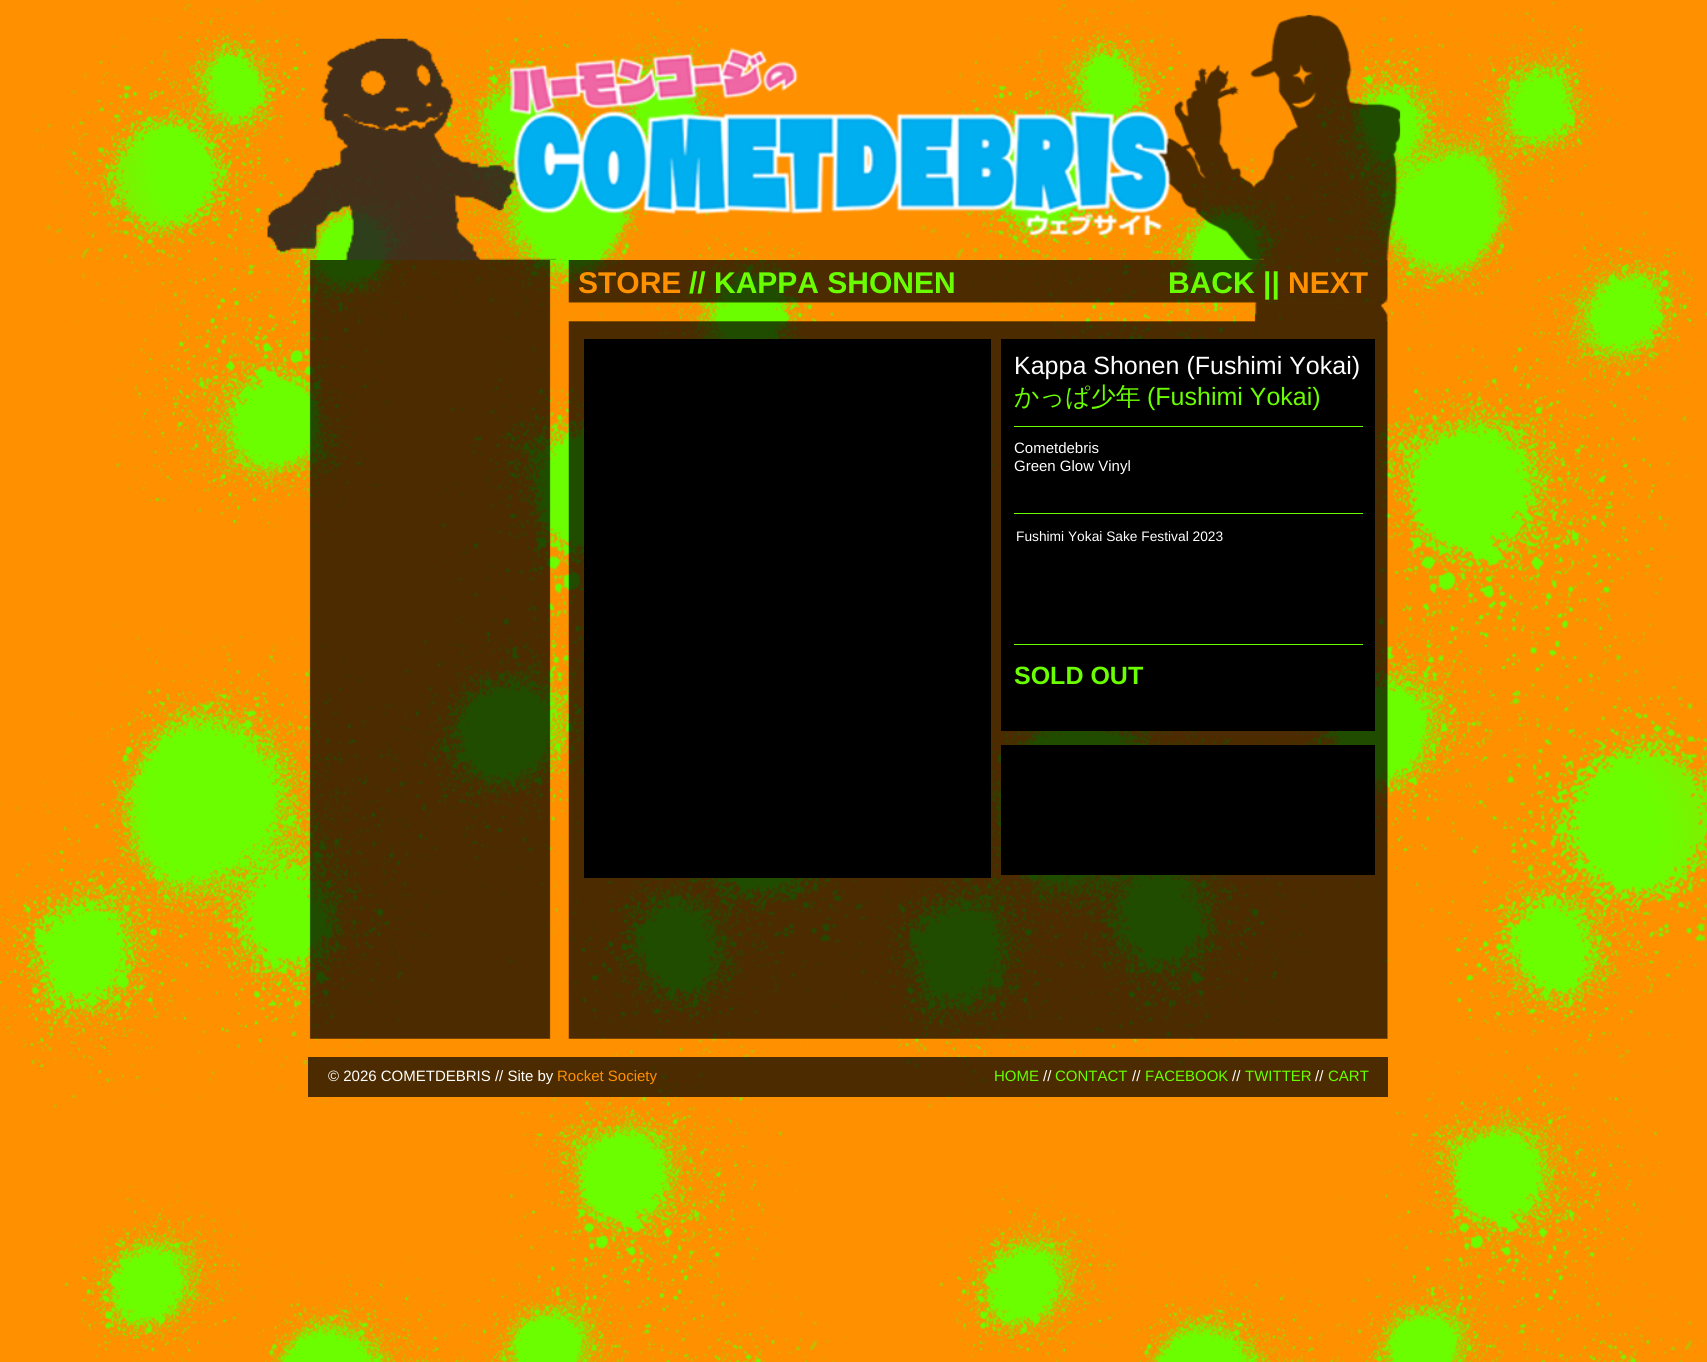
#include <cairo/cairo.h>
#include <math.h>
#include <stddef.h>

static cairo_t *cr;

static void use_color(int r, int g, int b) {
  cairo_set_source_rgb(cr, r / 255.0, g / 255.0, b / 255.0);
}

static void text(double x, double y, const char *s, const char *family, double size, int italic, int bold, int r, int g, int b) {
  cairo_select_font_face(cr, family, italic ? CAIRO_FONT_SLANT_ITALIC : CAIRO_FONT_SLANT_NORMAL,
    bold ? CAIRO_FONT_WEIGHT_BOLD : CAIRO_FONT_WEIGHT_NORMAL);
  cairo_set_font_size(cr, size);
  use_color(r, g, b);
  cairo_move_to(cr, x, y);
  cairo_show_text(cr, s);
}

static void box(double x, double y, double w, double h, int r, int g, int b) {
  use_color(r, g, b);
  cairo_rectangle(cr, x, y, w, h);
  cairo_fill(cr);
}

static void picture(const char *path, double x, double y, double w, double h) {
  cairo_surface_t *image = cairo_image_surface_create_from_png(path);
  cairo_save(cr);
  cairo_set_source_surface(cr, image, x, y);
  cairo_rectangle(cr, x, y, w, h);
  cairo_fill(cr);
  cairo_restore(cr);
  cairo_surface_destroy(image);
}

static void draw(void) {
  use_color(255, 255, 255);
  cairo_paint(cr);
  picture("img_01.png", 0, 0, 1707, 1362);
  picture("img_02.png", 267, 14, 1134, 246);
  picture("img_03.png", 309, 260, 1079, 779);
  box(584, 339, 407, 539, 0, 0, 0);
  box(1001, 339, 374, 392, 0, 0, 0);
  box(1014, 426, 349, 1, 106, 254, 0);
  box(1014, 513, 349, 1, 106, 254, 0);
  box(1014, 644, 349, 1, 106, 254, 0);
  box(1001, 745, 374, 130, 0, 0, 0);
  cairo_set_source_rgba(cr, 0, 0, 0, 0.7);
  cairo_rectangle(cr, 308, 1057, 1080, 40);
  cairo_fill(cr);
  text(578, 293, "STORE", "Liberation Sans", 30, 0, 1, 255, 144, 0);
  text(689, 293, "// KAPPA SHONEN", "Liberation Sans", 30, 0, 1, 106, 254, 0);
  text(1168, 293, "BACK ||", "Liberation Sans", 30, 0, 1, 106, 254, 0);
  text(1288, 293, "NEXT", "Liberation Sans", 30, 0, 1, 255, 144, 0);
  text(1014, 374, "Kappa Shonen (Fushimi Yokai)", "Liberation Sans", 25, 0, 0, 255, 255, 255);
  text(1014, 405, "かっぱ少年", "WenQuanYi Zen Hei Medium", 25, 0, 0, 106, 254, 0);
  text(1147, 405, "(Fushimi Yokai)", "Liberation Sans", 25, 0, 0, 106, 254, 0);
  text(1014, 453, "Cometdebris", "Liberation Sans", 15, 0, 0, 255, 255, 255);
  text(1014, 471, "Green Glow Vinyl", "Liberation Sans", 15, 0, 0, 255, 255, 255);
  text(1016, 541, "Fushimi Yokai Sake Festival 2023", "Liberation Sans", 13.75, 0, 0, 255, 255, 255);
  text(1014, 684, "SOLD OUT", "Liberation Sans", 25, 0, 1, 106, 254, 0);
  text(328, 1081, "© 2026 COMETDEBRIS // Site by", "Liberation Sans", 15, 0, 0, 255, 255, 255);
  text(557, 1081, "Rocket Society", "Liberation Sans", 15, 0, 0, 255, 144, 0);
  text(994, 1081, "HOME", "Liberation Sans", 15, 0, 0, 106, 254, 0);
  text(1043, 1081, "//", "Liberation Sans", 15, 0, 0, 255, 255, 255);
  text(1055, 1081, "CONTACT", "Liberation Sans", 15, 0, 0, 106, 254, 0);
  text(1132, 1081, "//", "Liberation Sans", 15, 0, 0, 255, 255, 255);
  text(1145, 1081, "FACEBOOK", "Liberation Sans", 15, 0, 0, 106, 254, 0);
  text(1232, 1081, "//", "Liberation Sans", 15, 0, 0, 255, 255, 255);
  text(1245, 1081, "TWITTER", "Liberation Sans", 15, 0, 0, 106, 254, 0);
  text(1315, 1081, "//", "Liberation Sans", 15, 0, 0, 255, 255, 255);
  text(1328, 1081, "CART", "Liberation Sans", 15, 0, 0, 106, 254, 0);
}

int main(void) {
  cairo_surface_t *surface = cairo_image_surface_create(CAIRO_FORMAT_RGB24, 1707, 1362);
  cr = cairo_create(surface);
  cairo_font_options_t *options = cairo_font_options_create();
  cairo_font_options_set_hint_metrics(options, CAIRO_HINT_METRICS_OFF);
  cairo_font_options_set_hint_style(options, CAIRO_HINT_STYLE_NONE);
  cairo_set_font_options(cr, options);
  cairo_set_miter_limit(cr, 4);
  draw();
  cairo_surface_write_to_png(surface, "out.png");
  cairo_font_options_destroy(options);
  cairo_destroy(cr);
  cairo_surface_destroy(surface);
  return 0;
}
